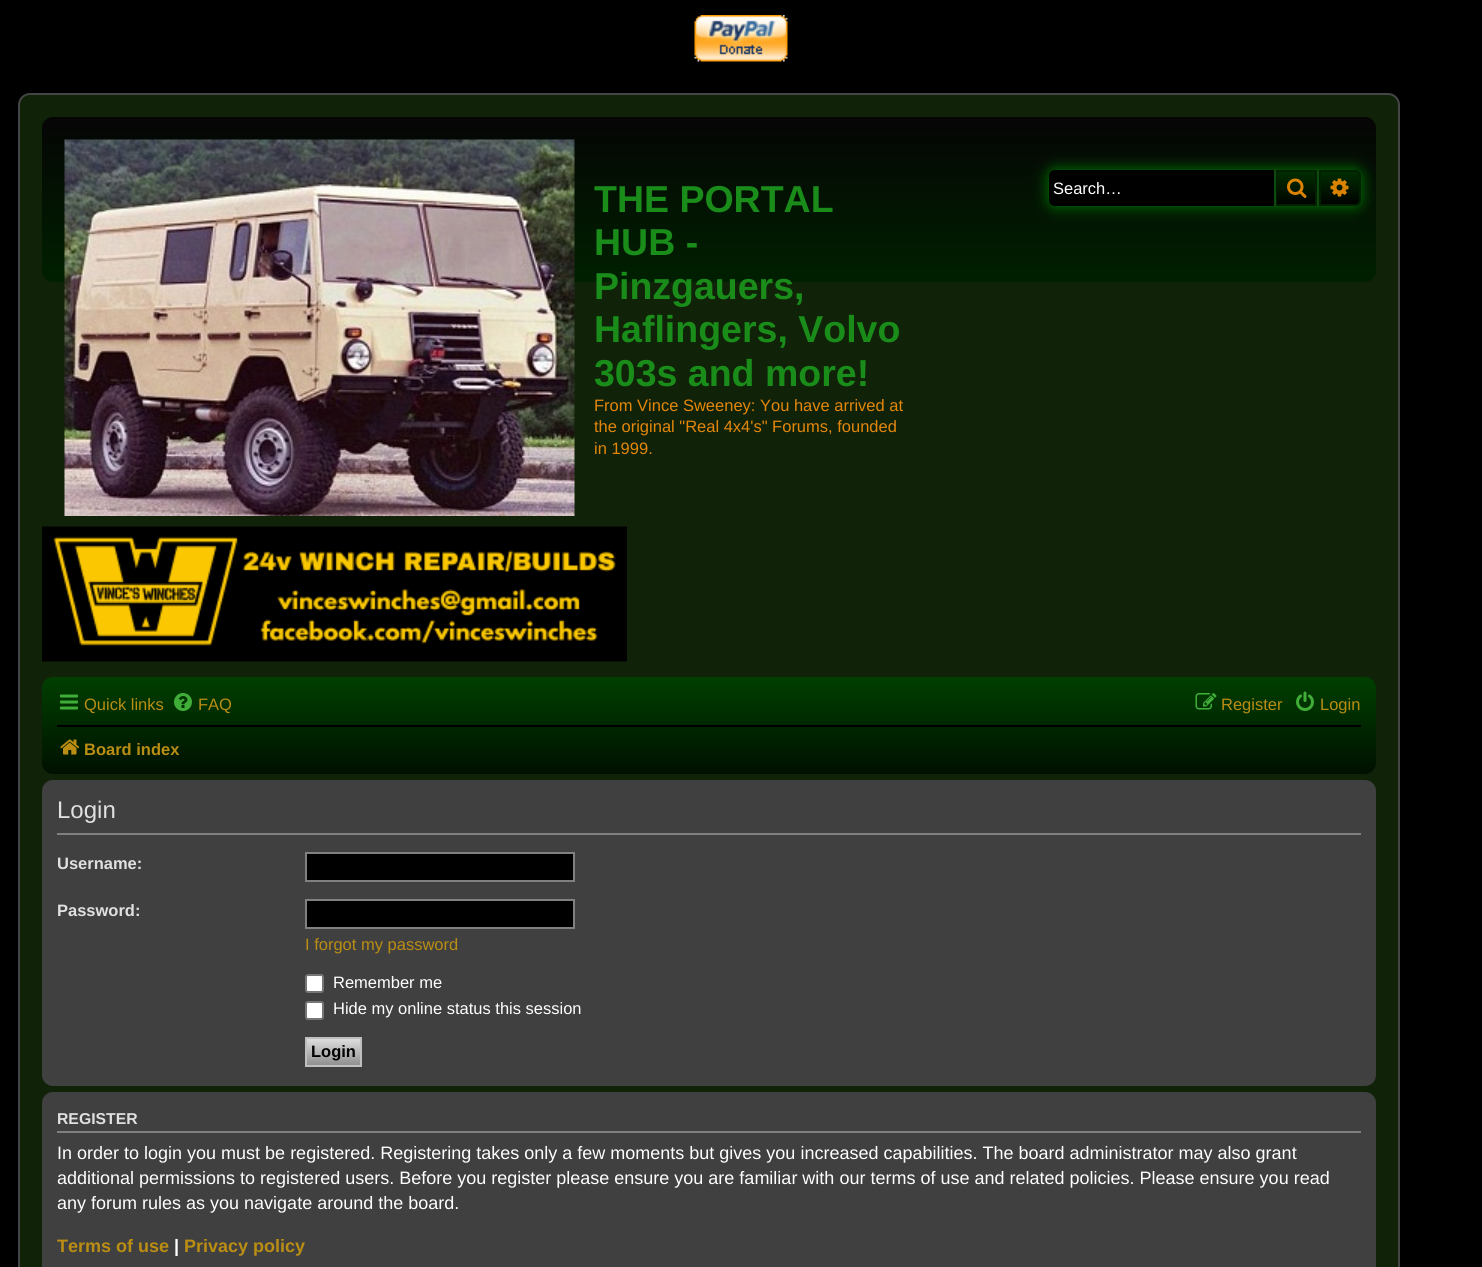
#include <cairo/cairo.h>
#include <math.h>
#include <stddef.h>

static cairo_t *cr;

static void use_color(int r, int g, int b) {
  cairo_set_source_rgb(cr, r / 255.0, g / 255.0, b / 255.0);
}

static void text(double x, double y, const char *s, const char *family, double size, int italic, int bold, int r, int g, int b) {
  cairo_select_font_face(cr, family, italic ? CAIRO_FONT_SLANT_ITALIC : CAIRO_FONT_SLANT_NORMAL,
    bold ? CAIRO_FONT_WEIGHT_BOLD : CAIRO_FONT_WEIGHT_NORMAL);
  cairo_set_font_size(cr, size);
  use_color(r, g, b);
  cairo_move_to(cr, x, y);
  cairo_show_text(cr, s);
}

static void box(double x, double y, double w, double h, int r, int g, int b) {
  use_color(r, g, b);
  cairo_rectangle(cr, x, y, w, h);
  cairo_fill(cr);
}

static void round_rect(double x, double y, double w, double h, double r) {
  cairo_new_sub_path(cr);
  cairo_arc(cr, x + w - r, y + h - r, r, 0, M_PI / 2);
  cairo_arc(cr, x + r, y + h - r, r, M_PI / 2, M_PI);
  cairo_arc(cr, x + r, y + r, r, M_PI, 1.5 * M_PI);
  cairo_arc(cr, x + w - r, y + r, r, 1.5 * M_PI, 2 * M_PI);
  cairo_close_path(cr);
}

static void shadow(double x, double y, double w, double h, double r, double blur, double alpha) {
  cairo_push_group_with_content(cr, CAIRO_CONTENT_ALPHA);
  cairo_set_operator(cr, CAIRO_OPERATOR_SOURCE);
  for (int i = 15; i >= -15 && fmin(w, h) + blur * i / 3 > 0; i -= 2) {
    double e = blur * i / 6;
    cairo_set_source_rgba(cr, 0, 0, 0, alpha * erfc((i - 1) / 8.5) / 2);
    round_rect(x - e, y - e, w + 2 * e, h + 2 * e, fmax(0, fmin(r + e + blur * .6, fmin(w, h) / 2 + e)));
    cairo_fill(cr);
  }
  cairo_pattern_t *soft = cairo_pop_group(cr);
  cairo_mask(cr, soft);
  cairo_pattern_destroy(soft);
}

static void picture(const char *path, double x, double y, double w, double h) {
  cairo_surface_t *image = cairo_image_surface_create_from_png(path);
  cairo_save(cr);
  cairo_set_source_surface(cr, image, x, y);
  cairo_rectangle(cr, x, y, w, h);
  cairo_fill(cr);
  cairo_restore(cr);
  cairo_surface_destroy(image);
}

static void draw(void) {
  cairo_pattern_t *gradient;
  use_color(0, 0, 0);
  cairo_paint(cr);
  picture("img_01.png", 694, 15, 94, 47);
  use_color(16, 34, 8);
  round_rect(19, 94, 1380, 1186, 11);
  cairo_fill_preserve(cr);
  use_color(69, 69, 69);
  cairo_stroke(cr);
  gradient = cairo_pattern_create_linear(709, 117, 709, 282);
  cairo_pattern_add_color_stop_rgba(gradient, 0, 0.02, 0.02, 0.02, 1);
  cairo_pattern_add_color_stop_rgba(gradient, 1, 0, 0.125, 0, 1);
  cairo_set_source(cr, gradient);
  cairo_pattern_destroy(gradient);
  round_rect(42, 117, 1334, 165, 11);
  cairo_fill(cr);
  picture("img_02.png", 64, 139, 511, 377);
  use_color(0, 127, 0);
  shadow(1049, 170, 312, 36, 6, 7.5, 1);
  use_color(0, 0, 0);
  cairo_new_path(cr);
  cairo_move_to(cr, 1055, 170);
  cairo_line_to(cr, 1274, 170);
  cairo_line_to(cr, 1274, 206);
  cairo_line_to(cr, 1055, 206);
  cairo_curve_to(cr, 1051.5, 206, 1049, 203.5, 1049, 200);
  cairo_line_to(cr, 1049, 176);
  cairo_curve_to(cr, 1049, 172.5, 1051.5, 170, 1055, 170);
  cairo_close_path(cr);
  cairo_fill(cr);
  gradient = cairo_pattern_create_linear(1296, 170, 1296, 206);
  cairo_pattern_add_color_stop_rgba(gradient, 0, 0, 0.188, 0, 1);
  cairo_pattern_add_color_stop_rgba(gradient, 1, 0, 0, 0, 1);
  cairo_set_source(cr, gradient);
  cairo_pattern_destroy(gradient);
  cairo_rectangle(cr, 1277, 172, 38, 32);
  cairo_fill(cr);
  cairo_rectangle(cr, 1276, 171, 40, 34);
  use_color(0, 32, 0);
  cairo_stroke(cr);
  box(1317, 170, 2, 36, 12, 75, 12);
  box(1274, 170, 2, 36, 12, 75, 12);
  picture("img_03.png", 1287, 178, 20, 20);
  gradient = cairo_pattern_create_linear(1340, 170, 1340, 206);
  cairo_pattern_add_color_stop_rgba(gradient, 0, 0, 0.188, 0, 1);
  cairo_pattern_add_color_stop_rgba(gradient, 1, 0, 0, 0, 1);
  cairo_set_source(cr, gradient);
  cairo_pattern_destroy(gradient);
  cairo_new_path(cr);
  cairo_move_to(cr, 1320, 171);
  cairo_line_to(cr, 1355, 171);
  cairo_curve_to(cr, 1358, 171, 1360, 173, 1360, 176);
  cairo_line_to(cr, 1360, 200);
  cairo_curve_to(cr, 1360, 203, 1358, 205, 1355, 205);
  cairo_line_to(cr, 1320, 205);
  cairo_close_path(cr);
  cairo_fill_preserve(cr);
  use_color(0, 32, 0);
  cairo_stroke(cr);
  picture("img_04.png", 1330, 178, 19, 19);
  picture("img_05.png", 42, 526, 585, 136);
  gradient = cairo_pattern_create_linear(709, 676, 709, 774);
  cairo_pattern_add_color_stop_rgba(gradient, 0, 0, 0.251, 0, 1);
  cairo_pattern_add_color_stop_rgba(gradient, 1, 0, 0.063, 0, 1);
  cairo_set_source(cr, gradient);
  cairo_pattern_destroy(gradient);
  round_rect(42, 677, 1334, 97, 11);
  cairo_fill(cr);
  picture("img_06.png", 60, 694, 18, 16);
  picture("img_07.png", 174, 693, 18, 18);
  picture("img_08.png", 1195, 693, 22, 17);
  picture("img_09.png", 1296, 691, 18, 20);
  box(57, 725, 1304, 2, 0, 0, 0);
  picture("img_10.png", 60, 739, 20, 16);
  use_color(64, 64, 64);
  round_rect(42, 780, 1334, 306, 11);
  cairo_fill(cr);
  box(57, 833, 1304, 2, 128, 128, 128);
  use_color(0, 0, 0);
  cairo_rectangle(cr, 306, 853, 268, 28);
  cairo_fill_preserve(cr);
  use_color(128, 128, 128);
  cairo_stroke(cr);
  use_color(0, 0, 0);
  cairo_rectangle(cr, 306, 900, 268, 28);
  cairo_fill_preserve(cr);
  use_color(128, 128, 128);
  cairo_stroke(cr);
  use_color(255, 255, 255);
  round_rect(306, 975, 17, 17, 2);
  cairo_fill_preserve(cr);
  use_color(118, 118, 118);
  cairo_stroke(cr);
  use_color(255, 255, 255);
  round_rect(306, 1002, 17, 17, 2);
  cairo_fill_preserve(cr);
  use_color(118, 118, 118);
  cairo_stroke(cr);
  gradient = cairo_pattern_create_linear(333, 1038, 333, 1065);
  cairo_pattern_add_color_stop_rgba(gradient, 0, 0.878, 0.878, 0.878, 1);
  cairo_pattern_add_color_stop_rgba(gradient, 1, 0.565, 0.565, 0.565, 1);
  cairo_set_source(cr, gradient);
  cairo_pattern_destroy(gradient);
  cairo_rectangle(cr, 307, 1039, 53, 26);
  cairo_fill(cr);
  cairo_rectangle(cr, 306, 1038, 55, 28);
  use_color(191, 191, 191);
  cairo_stroke(cr);
  use_color(64, 64, 64);
  round_rect(42, 1092, 1334, 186, 11);
  cairo_fill(cr);
  box(57, 1131, 1304, 2, 128, 128, 128);
  text(594, 212, "THE PORTAL", "Liberation Sans", 37.5, 0, 1, 25, 140, 25);
  text(594, 255, "HUB -", "Liberation Sans", 37.5, 0, 1, 25, 140, 25);
  text(594, 299, "Pinzgauers,", "Liberation Sans", 37.5, 0, 1, 25, 140, 25);
  text(594, 342, "Haflingers, Volvo", "Liberation Sans", 37.5, 0, 1, 25, 140, 25);
  text(594, 386, "303s and more!", "Liberation Sans", 37.5, 0, 1, 25, 140, 25);
  text(594, 411, "From Vince Sweeney: You have arrived at", "Liberation Sans", 16.5, 0, 0, 227, 134, 10);
  text(594, 432, "the original \"Real 4x4's\" Forums, founded", "Liberation Sans", 16.5, 0, 0, 227, 134, 10);
  text(594, 454, "in 1999.", "Liberation Sans", 16.5, 0, 0, 227, 134, 10);
  text(1053, 194, "Search…", "Liberation Sans", 16.5, 0, 0, 255, 255, 255);
  text(84, 710, "Quick links", "Liberation Sans", 16.5, 0, 0, 186, 141, 19);
  text(198, 710, "FAQ", "Liberation Sans", 16.5, 0, 0, 186, 141, 19);
  text(1221, 710, "Register", "Liberation Sans", 16.5, 0, 0, 186, 141, 19);
  text(1320, 710, "Login", "Liberation Sans", 16.5, 0, 0, 186, 141, 19);
  text(84, 755, "Board index", "Liberation Sans", 16.5, 0, 1, 186, 141, 19);
  text(57, 818, "Login", "Liberation Sans", 24, 0, 0, 224, 224, 224);
  text(57, 869, "Username:", "Liberation Sans", 16.5, 0, 1, 224, 224, 224);
  text(57, 916, "Password:", "Liberation Sans", 16.5, 0, 1, 224, 224, 224);
  text(305, 950, "I forgot my password", "Liberation Sans", 16.5, 0, 0, 186, 141, 19);
  text(333, 988, "Remember me", "Liberation Sans", 16.5, 0, 0, 255, 255, 255);
  text(333, 1014, "Hide my online status this session", "Liberation Sans", 16.5, 0, 0, 255, 255, 255);
  text(311, 1057, "Login", "Liberation Sans", 16.5, 0, 1, 2, 0, 0);
  text(57, 1124, "REGISTER", "Liberation Sans", 15.75, 0, 1, 224, 224, 224);
  text(57, 1159, "In order to login you must be registered. Registering takes only a few moments but gives you increased capabilities. The board administrator may also grant", "Liberation Sans", 18, 0, 0, 255, 255, 255);
  text(57, 1184, "additional permissions to registered users. Before you register please ensure you are familiar with our terms of use and related policies. Please ensure you read", "Liberation Sans", 18, 0, 0, 255, 255, 255);
  text(57, 1209, "any forum rules as you navigate around the board.", "Liberation Sans", 18, 0, 0, 255, 255, 255);
  text(57, 1252, "Terms of use", "Liberation Sans", 18, 0, 1, 186, 141, 19);
  text(174, 1252, "|", "Liberation Sans", 18, 0, 1, 255, 255, 255);
  text(184, 1252, "Privacy policy", "Liberation Sans", 18, 0, 1, 186, 141, 19);
}

int main(void) {
  cairo_surface_t *surface = cairo_image_surface_create(CAIRO_FORMAT_RGB24, 1482, 1267);
  cr = cairo_create(surface);
  cairo_font_options_t *options = cairo_font_options_create();
  cairo_font_options_set_hint_metrics(options, CAIRO_HINT_METRICS_OFF);
  cairo_font_options_set_hint_style(options, CAIRO_HINT_STYLE_NONE);
  cairo_set_font_options(cr, options);
  cairo_set_miter_limit(cr, 4);
  draw();
  cairo_surface_write_to_png(surface, "out.png");
  cairo_font_options_destroy(options);
  cairo_destroy(cr);
  cairo_surface_destroy(surface);
  return 0;
}
